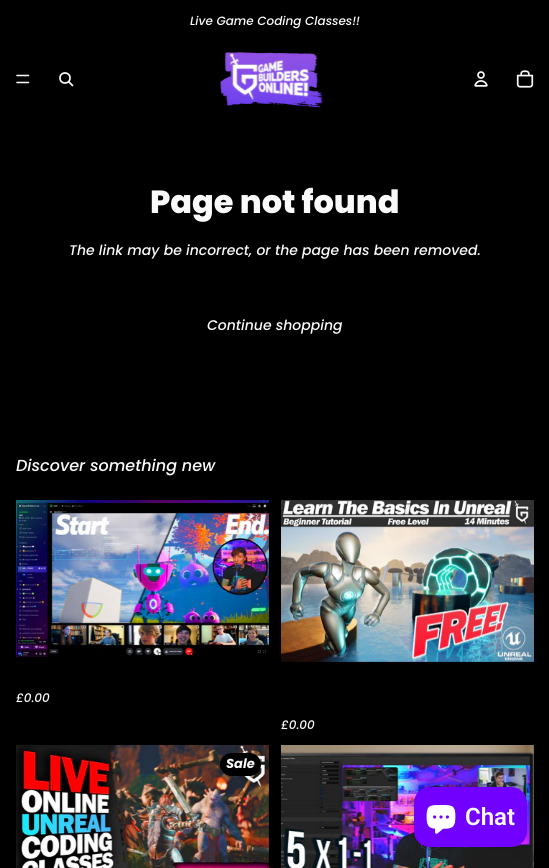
#include <cairo/cairo.h>
#include <math.h>
#include <stddef.h>

static cairo_t *cr;

static void use_color(int r, int g, int b) {
  cairo_set_source_rgb(cr, r / 255.0, g / 255.0, b / 255.0);
}

static void text(double x, double y, const char *s, const char *family, double size, int italic, int bold, int r, int g, int b) {
  cairo_select_font_face(cr, family, italic ? CAIRO_FONT_SLANT_ITALIC : CAIRO_FONT_SLANT_NORMAL,
    bold ? CAIRO_FONT_WEIGHT_BOLD : CAIRO_FONT_WEIGHT_NORMAL);
  cairo_set_font_size(cr, size);
  use_color(r, g, b);
  cairo_move_to(cr, x, y);
  cairo_show_text(cr, s);
}

static void round_rect(double x, double y, double w, double h, double r) {
  cairo_new_sub_path(cr);
  cairo_arc(cr, x + w - r, y + h - r, r, 0, M_PI / 2);
  cairo_arc(cr, x + r, y + h - r, r, M_PI / 2, M_PI);
  cairo_arc(cr, x + r, y + r, r, M_PI, 1.5 * M_PI);
  cairo_arc(cr, x + w - r, y + r, r, 1.5 * M_PI, 2 * M_PI);
  cairo_close_path(cr);
}

static void shadow(double x, double y, double w, double h, double r, double blur, double alpha) {
  cairo_push_group_with_content(cr, CAIRO_CONTENT_ALPHA);
  cairo_set_operator(cr, CAIRO_OPERATOR_SOURCE);
  for (int i = 15; i >= -15 && fmin(w, h) + blur * i / 3 > 0; i -= 2) {
    double e = blur * i / 6;
    cairo_set_source_rgba(cr, 0, 0, 0, alpha * erfc((i - 1) / 8.5) / 2);
    round_rect(x - e, y - e, w + 2 * e, h + 2 * e, fmax(0, fmin(r + e + blur * .6, fmin(w, h) / 2 + e)));
    cairo_fill(cr);
  }
  cairo_pattern_t *soft = cairo_pop_group(cr);
  cairo_mask(cr, soft);
  cairo_pattern_destroy(soft);
}

static void picture(const char *path, double x, double y, double w, double h) {
  cairo_surface_t *image = cairo_image_surface_create_from_png(path);
  cairo_save(cr);
  cairo_set_source_surface(cr, image, x, y);
  cairo_rectangle(cr, x, y, w, h);
  cairo_fill(cr);
  cairo_restore(cr);
  cairo_surface_destroy(image);
}

static void draw(void) {
  use_color(0, 0, 0);
  cairo_paint(cr);
  cairo_new_path(cr);
  cairo_move_to(cr, 17, 75.5);
  cairo_line_to(cr, 28.5, 75.5);
  cairo_move_to(cr, 17, 82.5);
  cairo_line_to(cr, 28.5, 82.5);
  use_color(250, 250, 250);
  cairo_set_line_width(cr, 1.5);
  cairo_set_line_cap(cr, CAIRO_LINE_CAP_ROUND);
  cairo_stroke(cr);
  cairo_arc(cr, 65, 78, 5, 0, 2 * M_PI);
  cairo_set_line_width(cr, 1.7);
  cairo_set_line_cap(cr, CAIRO_LINE_CAP_BUTT);
  cairo_stroke(cr);
  cairo_new_path(cr);
  cairo_move_to(cr, 69, 82);
  cairo_line_to(cr, 72.5, 85.5);
  cairo_set_line_cap(cr, CAIRO_LINE_CAP_ROUND);
  cairo_set_line_join(cr, CAIRO_LINE_JOIN_ROUND);
  cairo_stroke(cr);
  picture("img_01.png", 220, 52, 104, 56);
  picture("img_02.png", 474, 71, 14, 16);
  picture("img_03.png", 516, 70, 18, 18);
  picture("img_04.png", 16, 500, 253, 157);
  picture("img_05.png", 281, 500, 253, 162);
  picture("img_06.png", 16, 745, 253, 123);
  use_color(0, 0, 0);
  round_rect(220, 753, 41, 23, 11.5);
  cairo_fill(cr);
  picture("img_07.png", 281, 745, 253, 123);
  use_color(0, 0, 0);
  shadow(414, 787, 113, 60, 16, 2.5, 0.15);
  use_color(113, 0, 255);
  round_rect(414, 787, 113, 60, 16);
  cairo_fill(cr);
  picture("img_08.png", 426, 805, 30, 29);
  text(190, 25, "Live Game Coding Classes!!", "Poppins Medium", 12, 1, 0, 250, 250, 250);
  text(150, 213, "Page not found", "Poppins ExtraBold", 32, 0, 0, 250, 250, 250);
  text(69, 255, "The link may be incorrect, or the page has been removed.", "Poppins Medium", 14, 1, 0, 250, 250, 250);
  text(207, 330, "Continue shopping", "Poppins Medium", 14, 1, 0, 250, 250, 250);
  text(16, 471, "Discover something new", "Poppins Medium", 16, 1, 0, 250, 250, 250);
  text(16, 702, "£0.00", "Poppins Medium", 12, 1, 0, 250, 250, 250);
  text(281, 729, "£0.00", "Poppins Medium", 12, 1, 0, 250, 250, 250);
  text(226, 768, "Sale", "Poppins", 13, 1, 1, 250, 250, 250);
  text(465, 825, "Chat", "Roboto SemiBold", 24, 0, 0, 250, 250, 250);
}

int main(void) {
  cairo_surface_t *surface = cairo_image_surface_create(CAIRO_FORMAT_RGB24, 549, 868);
  cr = cairo_create(surface);
  cairo_font_options_t *options = cairo_font_options_create();
  cairo_font_options_set_hint_metrics(options, CAIRO_HINT_METRICS_OFF);
  cairo_font_options_set_hint_style(options, CAIRO_HINT_STYLE_NONE);
  cairo_set_font_options(cr, options);
  cairo_set_miter_limit(cr, 4);
  draw();
  cairo_surface_write_to_png(surface, "out.png");
  cairo_font_options_destroy(options);
  cairo_destroy(cr);
  cairo_surface_destroy(surface);
  return 0;
}
